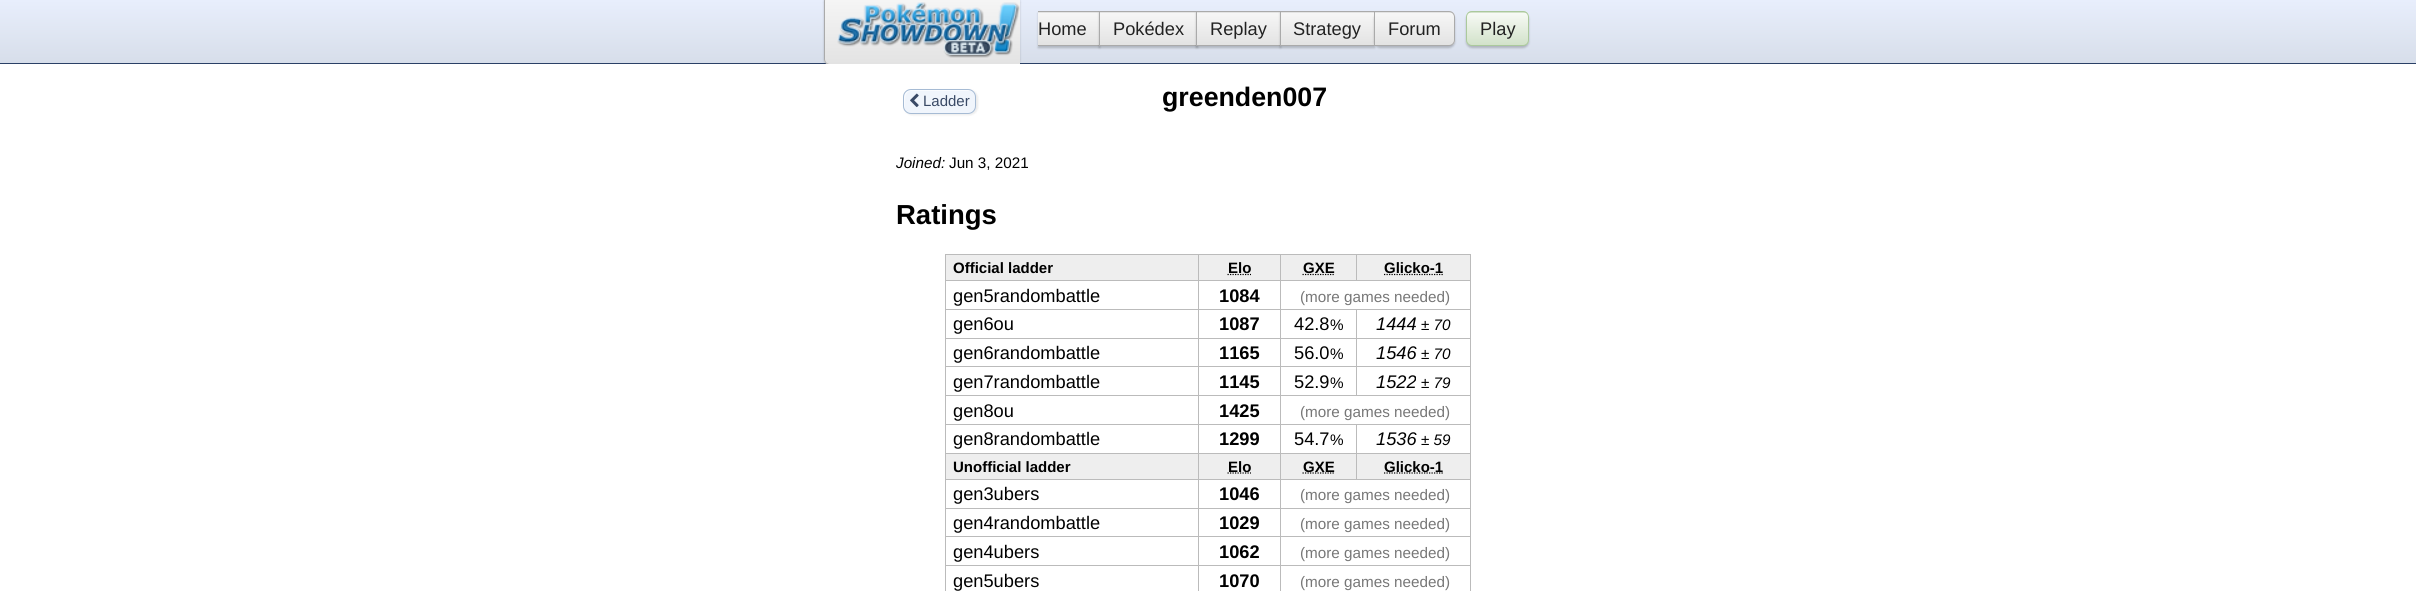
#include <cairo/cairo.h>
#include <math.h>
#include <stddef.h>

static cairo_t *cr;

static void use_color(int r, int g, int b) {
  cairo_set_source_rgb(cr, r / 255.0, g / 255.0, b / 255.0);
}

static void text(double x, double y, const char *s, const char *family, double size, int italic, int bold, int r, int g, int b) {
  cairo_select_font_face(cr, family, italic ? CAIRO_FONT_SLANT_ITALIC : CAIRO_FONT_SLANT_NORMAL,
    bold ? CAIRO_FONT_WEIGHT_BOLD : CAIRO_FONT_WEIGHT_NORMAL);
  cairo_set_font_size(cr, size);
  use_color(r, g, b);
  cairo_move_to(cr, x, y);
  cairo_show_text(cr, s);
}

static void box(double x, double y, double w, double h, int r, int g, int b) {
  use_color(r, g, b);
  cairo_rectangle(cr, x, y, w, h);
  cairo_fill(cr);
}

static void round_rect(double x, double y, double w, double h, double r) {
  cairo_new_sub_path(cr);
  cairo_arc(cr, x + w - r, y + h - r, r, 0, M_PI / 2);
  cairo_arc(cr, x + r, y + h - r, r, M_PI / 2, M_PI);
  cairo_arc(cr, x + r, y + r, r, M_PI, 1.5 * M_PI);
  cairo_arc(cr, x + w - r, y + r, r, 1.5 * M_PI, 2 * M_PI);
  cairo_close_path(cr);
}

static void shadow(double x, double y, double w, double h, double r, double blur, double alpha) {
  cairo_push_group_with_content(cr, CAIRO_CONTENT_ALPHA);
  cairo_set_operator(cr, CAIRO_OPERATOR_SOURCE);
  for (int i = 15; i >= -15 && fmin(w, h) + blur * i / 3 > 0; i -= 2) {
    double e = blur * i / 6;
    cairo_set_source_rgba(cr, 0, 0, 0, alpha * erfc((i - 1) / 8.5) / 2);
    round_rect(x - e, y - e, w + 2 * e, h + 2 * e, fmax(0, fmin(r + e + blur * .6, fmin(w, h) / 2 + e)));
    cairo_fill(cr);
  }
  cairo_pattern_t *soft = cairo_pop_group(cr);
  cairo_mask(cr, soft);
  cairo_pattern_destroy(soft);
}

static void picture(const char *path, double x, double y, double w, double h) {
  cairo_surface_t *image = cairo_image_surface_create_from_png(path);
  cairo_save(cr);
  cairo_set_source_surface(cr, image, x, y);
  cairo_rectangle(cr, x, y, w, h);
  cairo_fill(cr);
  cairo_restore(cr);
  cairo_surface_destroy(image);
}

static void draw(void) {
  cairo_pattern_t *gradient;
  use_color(255, 255, 255);
  cairo_paint(cr);
  gradient = cairo_pattern_create_linear(0, 0, 0, 63);
  cairo_pattern_add_color_stop_rgba(gradient, 0, 0.91, 0.933, 0.988, 1);
  cairo_pattern_add_color_stop_rgba(gradient, 1, 0.843, 0.871, 0.918, 1);
  cairo_set_source(cr, gradient);
  cairo_pattern_destroy(gradient);
  cairo_rectangle(cr, 0, 0, 2416, 63);
  cairo_fill(cr);
  box(0, 63, 2416, 1, 42, 64, 102);
  use_color(0, 0, 0);
  shadow(824, -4, 196, 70, 6, 1, 0.2);
  cairo_save(cr);
  cairo_new_path(cr);
  cairo_move_to(cr, 830, -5);
  cairo_line_to(cr, 1020, -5);
  cairo_line_to(cr, 1020, 65);
  cairo_line_to(cr, 830, 65);
  cairo_curve_to(cr, 826.5, 65, 824, 62.5, 824, 59);
  cairo_line_to(cr, 824, 1);
  cairo_curve_to(cr, 824, -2.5, 826.5, -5, 830, -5);
  cairo_close_path(cr);
  cairo_clip(cr);
  gradient = cairo_pattern_create_linear(825, -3.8, 825, 64);
  cairo_pattern_add_color_stop_rgba(gradient, 0, 0.965, 0.965, 0.965, 1);
  cairo_pattern_add_color_stop_rgba(gradient, 1, 0.89, 0.89, 0.89, 1);
  cairo_set_source(cr, gradient);
  cairo_pattern_destroy(gradient);
  cairo_rectangle(cr, 824, 0, 196, 64);
  cairo_fill(cr);
  cairo_restore(cr);
  use_color(170, 170, 170);
  cairo_set_fill_rule(cr, CAIRO_FILL_RULE_EVEN_ODD);
  cairo_new_path(cr);
  cairo_move_to(cr, 830, -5);
  cairo_line_to(cr, 1020, -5);
  cairo_line_to(cr, 1020, 65);
  cairo_line_to(cr, 830, 65);
  cairo_curve_to(cr, 827, 65, 824, 62, 824, 59);
  cairo_line_to(cr, 824, 1);
  cairo_curve_to(cr, 824, -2, 827, -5, 830, -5);
  cairo_close_path(cr);
  cairo_move_to(cr, 830, -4);
  cairo_line_to(cr, 1020, -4);
  cairo_line_to(cr, 1020, 64);
  cairo_line_to(cr, 830, 64);
  cairo_curve_to(cr, 827, 64, 825, 62, 825, 59);
  cairo_line_to(cr, 825, 1);
  cairo_curve_to(cr, 825, -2, 827, -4, 830, -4);
  cairo_close_path(cr);
  cairo_fill(cr);
  use_color(0, 0, 0);
  shadow(1038, 13, 62, 35, 0, 1, 0.2);
  gradient = cairo_pattern_create_linear(1038, -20, 1038, 13);
  cairo_pattern_add_color_stop_rgba(gradient, 0, 0.965, 0.965, 0.965, 1);
  cairo_pattern_add_color_stop_rgba(gradient, 1, 0.89, 0.89, 0.89, 1);
  cairo_set_source(cr, gradient);
  cairo_pattern_destroy(gradient);
  cairo_rectangle(cr, 1038, 12, 62, 1);
  cairo_fill(cr);
  gradient = cairo_pattern_create_linear(1038, 13, 1038, 45);
  cairo_pattern_add_color_stop_rgba(gradient, 0, 0.965, 0.965, 0.965, 1);
  cairo_pattern_add_color_stop_rgba(gradient, 1, 0.89, 0.89, 0.89, 1);
  cairo_set_source(cr, gradient);
  cairo_pattern_destroy(gradient);
  cairo_rectangle(cr, 1038, 13, 61, 32);
  cairo_fill(cr);
  box(1038, 11, 62, 1, 170, 170, 170);
  box(1038, 45, 62, 1, 170, 170, 170);
  picture("img_01.png", 837, 2, 183, 56);
  use_color(0, 0, 0);
  shadow(1099, 13, 99, 35, 0, 1, 0.2);
  gradient = cairo_pattern_create_linear(1100, -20, 1100, 13);
  cairo_pattern_add_color_stop_rgba(gradient, 0, 0.965, 0.965, 0.965, 1);
  cairo_pattern_add_color_stop_rgba(gradient, 1, 0.89, 0.89, 0.89, 1);
  cairo_set_source(cr, gradient);
  cairo_pattern_destroy(gradient);
  cairo_rectangle(cr, 1099, 12, 99, 1);
  cairo_fill(cr);
  gradient = cairo_pattern_create_linear(1100, 13, 1100, 45);
  cairo_pattern_add_color_stop_rgba(gradient, 0, 0.965, 0.965, 0.965, 1);
  cairo_pattern_add_color_stop_rgba(gradient, 1, 0.89, 0.89, 0.89, 1);
  cairo_set_source(cr, gradient);
  cairo_pattern_destroy(gradient);
  cairo_rectangle(cr, 1100, 13, 96, 32);
  cairo_fill(cr);
  cairo_rectangle(cr, 1099.5, 11.5, 98, 34);
  use_color(170, 170, 170);
  cairo_set_line_width(cr, 1);
  cairo_stroke(cr);
  use_color(0, 0, 0);
  shadow(1196, 13, 85, 35, 0, 1, 0.2);
  gradient = cairo_pattern_create_linear(1198, -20, 1198, 13);
  cairo_pattern_add_color_stop_rgba(gradient, 0, 0.965, 0.965, 0.965, 1);
  cairo_pattern_add_color_stop_rgba(gradient, 1, 0.89, 0.89, 0.89, 1);
  cairo_set_source(cr, gradient);
  cairo_pattern_destroy(gradient);
  cairo_rectangle(cr, 1196, 12, 85, 1);
  cairo_fill(cr);
  gradient = cairo_pattern_create_linear(1198, 13, 1198, 45);
  cairo_pattern_add_color_stop_rgba(gradient, 0, 0.965, 0.965, 0.965, 1);
  cairo_pattern_add_color_stop_rgba(gradient, 1, 0.89, 0.89, 0.89, 1);
  cairo_set_source(cr, gradient);
  cairo_pattern_destroy(gradient);
  cairo_rectangle(cr, 1197, 13, 83, 32);
  cairo_fill(cr);
  cairo_rectangle(cr, 1196.5, 11.5, 84, 34);
  use_color(170, 170, 170);
  cairo_stroke(cr);
  use_color(0, 0, 0);
  shadow(1280, 13, 95, 35, 0, 1, 0.2);
  gradient = cairo_pattern_create_linear(1281, -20, 1281, 13);
  cairo_pattern_add_color_stop_rgba(gradient, 0, 0.965, 0.965, 0.965, 1);
  cairo_pattern_add_color_stop_rgba(gradient, 1, 0.89, 0.89, 0.89, 1);
  cairo_set_source(cr, gradient);
  cairo_pattern_destroy(gradient);
  cairo_rectangle(cr, 1280, 12, 95, 1);
  cairo_fill(cr);
  gradient = cairo_pattern_create_linear(1281, 13, 1281, 45);
  cairo_pattern_add_color_stop_rgba(gradient, 0, 0.965, 0.965, 0.965, 1);
  cairo_pattern_add_color_stop_rgba(gradient, 1, 0.89, 0.89, 0.89, 1);
  cairo_set_source(cr, gradient);
  cairo_pattern_destroy(gradient);
  cairo_rectangle(cr, 1281, 13, 93, 32);
  cairo_fill(cr);
  cairo_rectangle(cr, 1280.5, 11.5, 94, 34);
  use_color(170, 170, 170);
  cairo_stroke(cr);
  use_color(0, 0, 0);
  shadow(1374, 13, 81, 35, 6, 1, 0.2);
  cairo_save(cr);
  cairo_set_fill_rule(cr, CAIRO_FILL_RULE_WINDING);
  cairo_new_path(cr);
  cairo_move_to(cr, 1374, 11);
  cairo_line_to(cr, 1449, 11);
  cairo_curve_to(cr, 1452.5, 11, 1455, 13.5, 1455, 17);
  cairo_line_to(cr, 1455, 40);
  cairo_curve_to(cr, 1455, 43.5, 1452.5, 46, 1449, 46);
  cairo_line_to(cr, 1374, 46);
  cairo_close_path(cr);
  cairo_clip(cr);
  gradient = cairo_pattern_create_linear(1375, -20, 1375, 13);
  cairo_pattern_add_color_stop_rgba(gradient, 0, 0.965, 0.965, 0.965, 1);
  cairo_pattern_add_color_stop_rgba(gradient, 1, 0.89, 0.89, 0.89, 1);
  cairo_set_source(cr, gradient);
  cairo_pattern_destroy(gradient);
  cairo_rectangle(cr, 1374, 11, 81, 2);
  cairo_fill(cr);
  gradient = cairo_pattern_create_linear(1375, 13, 1375, 45);
  cairo_pattern_add_color_stop_rgba(gradient, 0, 0.965, 0.965, 0.965, 1);
  cairo_pattern_add_color_stop_rgba(gradient, 1, 0.89, 0.89, 0.89, 1);
  cairo_set_source(cr, gradient);
  cairo_pattern_destroy(gradient);
  cairo_rectangle(cr, 1375, 13, 80, 32);
  cairo_fill(cr);
  cairo_restore(cr);
  cairo_new_path(cr);
  cairo_move_to(cr, 1374.5, 11.5);
  cairo_line_to(cr, 1449, 11.5);
  cairo_curve_to(cr, 1452, 11.5, 1454.5, 14, 1454.5, 17);
  cairo_line_to(cr, 1454.5, 40);
  cairo_curve_to(cr, 1454.5, 43, 1452, 45.5, 1449, 45.5);
  cairo_line_to(cr, 1374.5, 45.5);
  cairo_close_path(cr);
  use_color(170, 170, 170);
  cairo_stroke(cr);
  use_color(0, 0, 0);
  shadow(1466, 13, 63, 35, 6, 1, 0.2);
  cairo_save(cr);
  cairo_set_fill_rule(cr, CAIRO_FILL_RULE_WINDING);
  round_rect(1466, 11, 63, 35, 6);
  cairo_clip(cr);
  gradient = cairo_pattern_create_linear(1468, -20, 1468, 13);
  cairo_pattern_add_color_stop_rgba(gradient, 0, 0.969, 0.98, 0.961, 1);
  cairo_pattern_add_color_stop_rgba(gradient, 1, 0.824, 0.886, 0.792, 1);
  cairo_set_source(cr, gradient);
  cairo_pattern_destroy(gradient);
  cairo_rectangle(cr, 1466, 11, 63, 2);
  cairo_fill(cr);
  gradient = cairo_pattern_create_linear(1468, 13, 1468, 45);
  cairo_pattern_add_color_stop_rgba(gradient, 0, 0.969, 0.98, 0.961, 1);
  cairo_pattern_add_color_stop_rgba(gradient, 1, 0.824, 0.886, 0.792, 1);
  cairo_set_source(cr, gradient);
  cairo_pattern_destroy(gradient);
  cairo_rectangle(cr, 1466, 13, 63, 32);
  cairo_fill(cr);
  cairo_restore(cr);
  round_rect(1466.5, 11.5, 62, 34, 5.5);
  use_color(171, 201, 156);
  cairo_stroke(cr);
  box(824, 64, 196, 4, 255, 255, 255);
  use_color(0, 0, 0);
  shadow(904, 90, 74, 25, 8, 1, 0.08);
  use_color(240, 245, 252);
  round_rect(903, 89, 73, 25, 8);
  cairo_fill(cr);
  use_color(249, 251, 254);
  cairo_set_fill_rule(cr, CAIRO_FILL_RULE_WINDING);
  cairo_new_path(cr);
  cairo_move_to(cr, 911, 91);
  cairo_line_to(cr, 970, 91);
  cairo_curve_to(cr, 972, 91, 973, 92, 974, 93);
  cairo_curve_to(cr, 973, 91, 971, 90, 969, 90);
  cairo_line_to(cr, 910, 90);
  cairo_curve_to(cr, 907, 90, 904, 93, 904, 96);
  cairo_line_to(cr, 904, 107);
  cairo_curve_to(cr, 904, 109, 905, 111, 907, 112);
  cairo_curve_to(cr, 904, 110, 905, 106, 905, 103);
  cairo_curve_to(cr, 905, 99, 905, 91, 911, 91);
  cairo_close_path(cr);
  cairo_fill(cr);
  round_rect(903.5, 89.5, 72, 24, 7.5);
  use_color(166, 187, 212);
  cairo_stroke(cr);
  picture("img_02.png", 910, 93, 9, 15);
  box(945, 254, 526, 1, 187, 187, 187);
  box(1470, 254, 1, 337, 187, 187, 187);
  box(945, 254, 1, 337, 187, 187, 187);
  box(946, 255, 252, 25, 238, 238, 238);
  box(1199, 255, 81, 25, 238, 238, 238);
  box(1280, 280, 191, 1, 187, 187, 187);
  box(1356, 309, 115, 1, 187, 187, 187);
  box(1356, 338, 115, 1, 187, 187, 187);
  box(1356, 366, 115, 1, 187, 187, 187);
  box(1280, 395, 191, 1, 187, 187, 187);
  box(1356, 366, 1, 30, 187, 187, 187);
  box(1280, 366, 78, 1, 187, 187, 187);
  box(1356, 338, 1, 30, 187, 187, 187);
  box(1280, 338, 78, 1, 187, 187, 187);
  box(1356, 309, 1, 30, 187, 187, 187);
  box(1280, 309, 78, 1, 187, 187, 187);
  box(1356, 424, 115, 1, 187, 187, 187);
  box(1356, 453, 115, 1, 187, 187, 187);
  box(1280, 479, 191, 1, 187, 187, 187);
  box(1356, 453, 1, 27, 187, 187, 187);
  box(1280, 453, 78, 1, 187, 187, 187);
  box(1356, 424, 1, 30, 187, 187, 187);
  box(1280, 424, 78, 1, 187, 187, 187);
  box(1280, 508, 191, 1, 187, 187, 187);
  box(1280, 536, 191, 1, 187, 187, 187);
  box(1280, 565, 191, 1, 187, 187, 187);
  box(1280, 565, 1, 26, 187, 187, 187);
  box(1198, 565, 83, 1, 187, 187, 187);
  box(1280, 536, 1, 30, 187, 187, 187);
  box(1198, 536, 83, 1, 187, 187, 187);
  box(1280, 508, 1, 30, 187, 187, 187);
  box(1198, 508, 83, 1, 187, 187, 187);
  box(1280, 479, 1, 30, 187, 187, 187);
  box(1198, 479, 83, 1, 187, 187, 187);
  box(1280, 453, 1, 27, 187, 187, 187);
  box(1198, 453, 83, 1, 187, 187, 187);
  box(1280, 424, 1, 30, 187, 187, 187);
  box(1198, 424, 83, 1, 187, 187, 187);
  box(1280, 395, 1, 30, 187, 187, 187);
  box(1198, 395, 83, 1, 187, 187, 187);
  box(1280, 366, 1, 30, 187, 187, 187);
  box(1198, 366, 83, 1, 187, 187, 187);
  box(1280, 338, 1, 30, 187, 187, 187);
  box(1198, 338, 83, 1, 187, 187, 187);
  box(1280, 309, 1, 30, 187, 187, 187);
  box(1198, 309, 83, 1, 187, 187, 187);
  box(1280, 280, 1, 30, 187, 187, 187);
  box(1198, 280, 83, 1, 187, 187, 187);
  box(1198, 565, 1, 26, 187, 187, 187);
  box(945, 565, 254, 1, 187, 187, 187);
  box(1198, 536, 1, 30, 187, 187, 187);
  box(945, 536, 254, 1, 187, 187, 187);
  box(1198, 508, 1, 30, 187, 187, 187);
  box(945, 508, 254, 1, 187, 187, 187);
  box(1198, 479, 1, 30, 187, 187, 187);
  box(945, 479, 254, 1, 187, 187, 187);
  box(1198, 453, 1, 27, 187, 187, 187);
  box(945, 453, 254, 1, 187, 187, 187);
  box(1198, 424, 1, 30, 187, 187, 187);
  box(945, 424, 254, 1, 187, 187, 187);
  box(1198, 395, 1, 30, 187, 187, 187);
  box(945, 395, 254, 1, 187, 187, 187);
  box(1198, 366, 1, 30, 187, 187, 187);
  box(945, 366, 254, 1, 187, 187, 187);
  box(1198, 338, 1, 30, 187, 187, 187);
  box(945, 338, 254, 1, 187, 187, 187);
  box(1198, 309, 1, 30, 187, 187, 187);
  box(945, 309, 254, 1, 187, 187, 187);
  box(1198, 280, 1, 30, 187, 187, 187);
  box(945, 280, 254, 1, 187, 187, 187);
  box(1198, 254, 1, 27, 187, 187, 187);
  cairo_new_path(cr);
  cairo_move_to(cr, 1227.5, 274.5);
  cairo_line_to(cr, 1251, 274.5);
  use_color(0, 0, 0);
  cairo_set_line_width(cr, 1.2);
  cairo_set_dash(cr, (double[]){1.25, 1.25}, 2, 0);
  cairo_stroke(cr);
  box(1281, 255, 75, 25, 238, 238, 238);
  box(1280, 254, 1, 27, 187, 187, 187);
  cairo_new_path(cr);
  cairo_move_to(cr, 1302.5, 274.5);
  cairo_line_to(cr, 1334.5, 274.5);
  use_color(0, 0, 0);
  cairo_stroke(cr);
  box(1357, 255, 113, 25, 238, 238, 238);
  box(1356, 254, 1, 27, 187, 187, 187);
  cairo_new_path(cr);
  cairo_move_to(cr, 1384, 274.5);
  cairo_line_to(cr, 1443, 274.5);
  use_color(0, 0, 0);
  cairo_stroke(cr);
  box(946, 454, 252, 25, 238, 238, 238);
  box(1199, 454, 81, 25, 238, 238, 238);
  cairo_new_path(cr);
  cairo_move_to(cr, 1227.5, 473);
  cairo_line_to(cr, 1251, 473);
  use_color(0, 0, 0);
  cairo_stroke(cr);
  box(1281, 454, 75, 25, 238, 238, 238);
  cairo_new_path(cr);
  cairo_move_to(cr, 1302.5, 473);
  cairo_line_to(cr, 1334.5, 473);
  use_color(0, 0, 0);
  cairo_stroke(cr);
  box(1357, 454, 113, 25, 238, 238, 238);
  cairo_new_path(cr);
  cairo_move_to(cr, 1384, 473);
  cairo_line_to(cr, 1443, 473);
  use_color(0, 0, 0);
  cairo_stroke(cr);
  text(1038, 35, "Home", "Liberation Sans", 18.25, 0, 0, 34, 34, 34);
  text(1113, 35, "Pokédex", "Liberation Sans", 18.25, 0, 0, 34, 34, 34);
  text(1210, 35, "Replay", "Liberation Sans", 18.25, 0, 0, 34, 34, 34);
  text(1293, 35, "Strategy", "Liberation Sans", 18.25, 0, 0, 34, 34, 34);
  text(1388, 35, "Forum", "Liberation Sans", 18.25, 0, 0, 34, 34, 34);
  text(1480, 35, "Play", "Liberation Sans", 18.25, 0, 0, 34, 34, 34);
  text(923, 106, "Ladder", "Liberation Sans", 15, 0, 0, 58, 74, 102);
  text(1162, 106, "greenden007", "Liberation Sans", 26.75, 0, 1, 0, 0, 0);
  text(896, 168, "Joined:", "Liberation Sans", 15.25, 1, 0, 0, 0, 0);
  text(949, 168, "Jun 3, 2021", "Liberation Sans", 15.25, 0, 0, 0, 0, 0);
  text(896, 224, "Ratings", "Liberation Sans", 27.5, 0, 1, 0, 0, 0);
  text(953, 273, "Official ladder", "Liberation Sans", 15, 0, 1, 0, 0, 0);
  text(1228, 273, "Elo", "Liberation Sans", 15, 0, 1, 0, 0, 0);
  text(1303, 273, "GXE", "Liberation Sans", 15, 0, 1, 0, 0, 0);
  text(1384, 273, "Glicko-1", "Liberation Sans", 15, 0, 1, 0, 0, 0);
  text(953, 302, "gen5randombattle", "Liberation Sans", 18.25, 0, 0, 0, 0, 0);
  text(1219, 302, "1084", "Liberation Sans", 18.25, 0, 1, 0, 0, 0);
  text(1300, 302, "(more games needed)", "Liberation Sans", 15.25, 0, 0, 119, 119, 119);
  text(953, 330, "gen6ou", "Liberation Sans", 18.25, 0, 0, 0, 0, 0);
  text(1219, 330, "1087", "Liberation Sans", 18.25, 0, 1, 0, 0, 0);
  text(1294, 330, "42.8", "Liberation Sans", 18.25, 0, 0, 0, 0, 0);
  text(1330, 330, "%", "Liberation Sans", 15.25, 0, 0, 0, 0, 0);
  text(1376, 330, "1444", "Liberation Sans", 18.25, 1, 0, 0, 0, 0);
  text(1421, 330, "± 70", "Liberation Sans", 15.25, 1, 0, 0, 0, 0);
  text(953, 359, "gen6randombattle", "Liberation Sans", 18.25, 0, 0, 0, 0, 0);
  text(1219, 359, "1165", "Liberation Sans", 18.25, 0, 1, 0, 0, 0);
  text(1294, 359, "56.0", "Liberation Sans", 18.25, 0, 0, 0, 0, 0);
  text(1330, 359, "%", "Liberation Sans", 15.25, 0, 0, 0, 0, 0);
  text(1376, 359, "1546", "Liberation Sans", 18.25, 1, 0, 0, 0, 0);
  text(1421, 359, "± 70", "Liberation Sans", 15.25, 1, 0, 0, 0, 0);
  text(953, 388, "gen7randombattle", "Liberation Sans", 18.25, 0, 0, 0, 0, 0);
  text(1219, 388, "1145", "Liberation Sans", 18.25, 0, 1, 0, 0, 0);
  text(1294, 388, "52.9", "Liberation Sans", 18.25, 0, 0, 0, 0, 0);
  text(1330, 388, "%", "Liberation Sans", 15.25, 0, 0, 0, 0, 0);
  text(1376, 388, "1522", "Liberation Sans", 18.25, 1, 0, 0, 0, 0);
  text(1421, 388, "± 79", "Liberation Sans", 15.25, 1, 0, 0, 0, 0);
  text(953, 417, "gen8ou", "Liberation Sans", 18.25, 0, 0, 0, 0, 0);
  text(1219, 417, "1425", "Liberation Sans", 18.25, 0, 1, 0, 0, 0);
  text(1300, 417, "(more games needed)", "Liberation Sans", 15.25, 0, 0, 119, 119, 119);
  text(953, 445, "gen8randombattle", "Liberation Sans", 18.25, 0, 0, 0, 0, 0);
  text(1219, 445, "1299", "Liberation Sans", 18.25, 0, 1, 0, 0, 0);
  text(1294, 445, "54.7", "Liberation Sans", 18.25, 0, 0, 0, 0, 0);
  text(1330, 445, "%", "Liberation Sans", 15.25, 0, 0, 0, 0, 0);
  text(1376, 445, "1536", "Liberation Sans", 18.25, 1, 0, 0, 0, 0);
  text(1421, 445, "± 59", "Liberation Sans", 15.25, 1, 0, 0, 0, 0);
  text(953, 472, "Unofficial ladder", "Liberation Sans", 15, 0, 1, 0, 0, 0);
  text(1228, 472, "Elo", "Liberation Sans", 15, 0, 1, 0, 0, 0);
  text(1303, 472, "GXE", "Liberation Sans", 15, 0, 1, 0, 0, 0);
  text(1384, 472, "Glicko-1", "Liberation Sans", 15, 0, 1, 0, 0, 0);
  text(953, 500, "gen3ubers", "Liberation Sans", 18.25, 0, 0, 0, 0, 0);
  text(1219, 500, "1046", "Liberation Sans", 18.25, 0, 1, 0, 0, 0);
  text(1300, 500, "(more games needed)", "Liberation Sans", 15.25, 0, 0, 119, 119, 119);
  text(953, 529, "gen4randombattle", "Liberation Sans", 18.25, 0, 0, 0, 0, 0);
  text(1219, 529, "1029", "Liberation Sans", 18.25, 0, 1, 0, 0, 0);
  text(1300, 529, "(more games needed)", "Liberation Sans", 15.25, 0, 0, 119, 119, 119);
  text(953, 558, "gen4ubers", "Liberation Sans", 18.25, 0, 0, 0, 0, 0);
  text(1219, 558, "1062", "Liberation Sans", 18.25, 0, 1, 0, 0, 0);
  text(1300, 558, "(more games needed)", "Liberation Sans", 15.25, 0, 0, 119, 119, 119);
  text(953, 587, "gen5ubers", "Liberation Sans", 18.25, 0, 0, 0, 0, 0);
  text(1219, 587, "1070", "Liberation Sans", 18.25, 0, 1, 0, 0, 0);
  text(1300, 587, "(more games needed)", "Liberation Sans", 15.25, 0, 0, 119, 119, 119);
}

int main(void) {
  cairo_surface_t *surface = cairo_image_surface_create(CAIRO_FORMAT_RGB24, 2416, 591);
  cr = cairo_create(surface);
  cairo_font_options_t *options = cairo_font_options_create();
  cairo_font_options_set_hint_metrics(options, CAIRO_HINT_METRICS_OFF);
  cairo_font_options_set_hint_style(options, CAIRO_HINT_STYLE_NONE);
  cairo_set_font_options(cr, options);
  cairo_set_miter_limit(cr, 4);
  draw();
  cairo_surface_write_to_png(surface, "out.png");
  cairo_font_options_destroy(options);
  cairo_destroy(cr);
  cairo_surface_destroy(surface);
  return 0;
}
